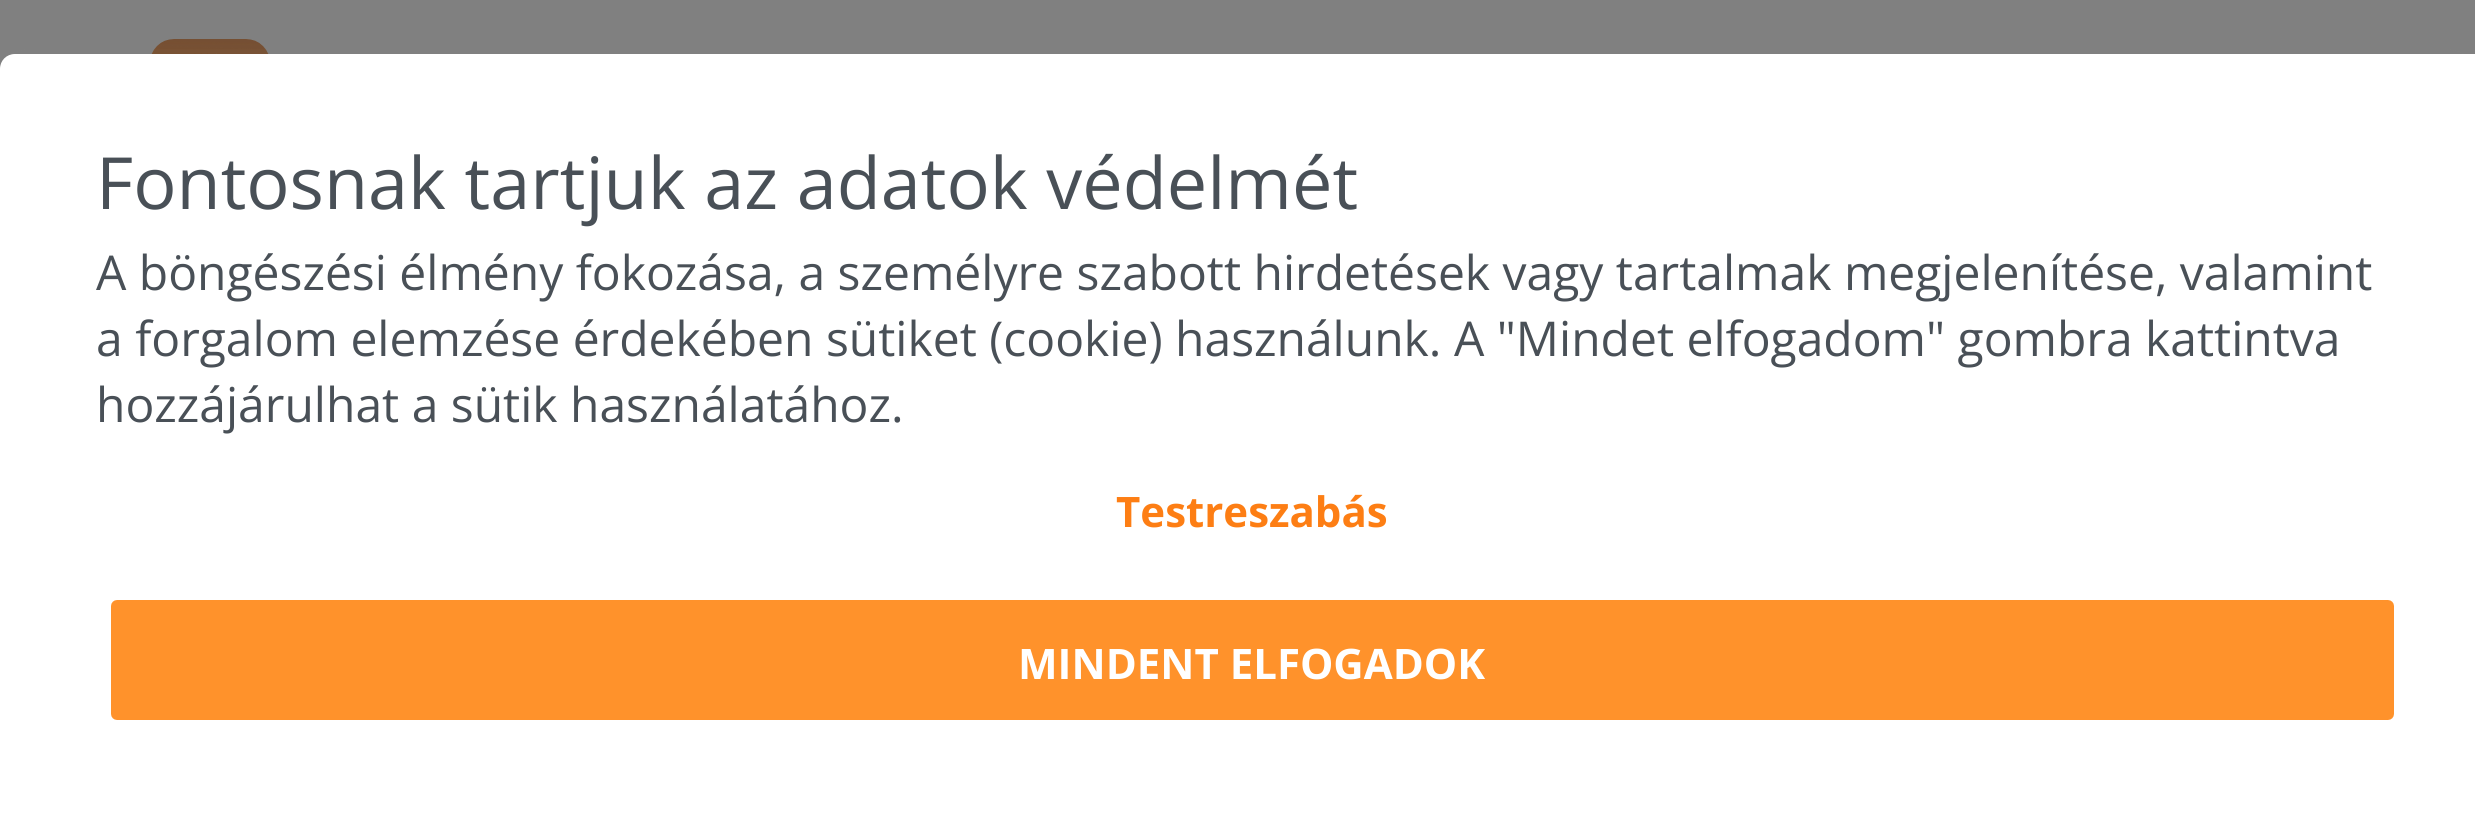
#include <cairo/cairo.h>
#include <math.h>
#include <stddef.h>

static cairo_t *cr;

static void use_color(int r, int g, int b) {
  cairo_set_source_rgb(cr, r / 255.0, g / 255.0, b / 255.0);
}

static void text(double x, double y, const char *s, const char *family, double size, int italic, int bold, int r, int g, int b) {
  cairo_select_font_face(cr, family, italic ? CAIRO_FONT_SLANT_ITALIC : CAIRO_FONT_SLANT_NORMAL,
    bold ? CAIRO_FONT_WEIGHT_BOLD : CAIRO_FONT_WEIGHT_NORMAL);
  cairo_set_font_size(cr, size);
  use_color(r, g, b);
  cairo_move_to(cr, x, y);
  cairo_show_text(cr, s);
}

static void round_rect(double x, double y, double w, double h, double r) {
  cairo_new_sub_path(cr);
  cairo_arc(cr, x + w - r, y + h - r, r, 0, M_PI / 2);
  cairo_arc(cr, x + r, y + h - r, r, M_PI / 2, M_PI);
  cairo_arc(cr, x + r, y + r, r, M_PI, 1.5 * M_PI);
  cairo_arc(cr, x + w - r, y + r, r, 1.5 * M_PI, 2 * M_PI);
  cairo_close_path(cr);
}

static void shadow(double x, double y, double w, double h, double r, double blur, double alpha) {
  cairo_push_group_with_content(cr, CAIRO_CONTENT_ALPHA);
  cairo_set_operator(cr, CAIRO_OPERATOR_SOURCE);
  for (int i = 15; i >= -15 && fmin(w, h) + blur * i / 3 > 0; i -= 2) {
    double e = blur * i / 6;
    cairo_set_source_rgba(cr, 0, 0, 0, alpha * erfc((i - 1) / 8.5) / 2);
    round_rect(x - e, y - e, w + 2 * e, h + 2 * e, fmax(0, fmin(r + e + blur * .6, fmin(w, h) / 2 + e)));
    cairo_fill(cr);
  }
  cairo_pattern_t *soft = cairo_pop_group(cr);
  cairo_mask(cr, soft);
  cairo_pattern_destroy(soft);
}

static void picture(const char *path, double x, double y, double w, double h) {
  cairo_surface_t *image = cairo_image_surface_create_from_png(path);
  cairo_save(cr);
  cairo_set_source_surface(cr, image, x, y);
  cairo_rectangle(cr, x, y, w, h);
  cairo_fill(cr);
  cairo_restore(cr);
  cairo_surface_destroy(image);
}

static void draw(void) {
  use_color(128, 128, 128);
  cairo_paint(cr);
  picture("img_01.png", 151, 39, 118, 15);
  use_color(136, 136, 136);
  shadow(18, 72, 2439, 741, 0, 15, 1);
  use_color(255, 255, 255);
  cairo_new_path(cr);
  cairo_move_to(cr, 15, 54);
  cairo_line_to(cr, 2475, 54);
  cairo_line_to(cr, 2475, 831);
  cairo_line_to(cr, 0, 831);
  cairo_line_to(cr, 0, 69);
  cairo_curve_to(cr, 0, 60.5, 6.5, 54, 15, 54);
  cairo_close_path(cr);
  cairo_fill(cr);
  use_color(255, 146, 43);
  round_rect(114, 603, 2277, 114, 3);
  cairo_fill_preserve(cr);
  cairo_set_line_width(cr, 6);
  cairo_stroke(cr);
  text(96, 209, "Fontosnak tartjuk az adatok védelmét", "Open Sans", 72, 0, 0, 73, 80, 87);
  text(96, 290, "A böngészési élmény fokozása, a személyre szabott hirdetések vagy tartalmak megjelenítése, valamint", "Open Sans", 48, 0, 0, 73, 80, 87);
  text(96, 356, "a forgalom elemzése érdekében sütiket (cookie) használunk. A \"Mindet elfogadom\" gombra kattintva", "Open Sans", 48, 0, 0, 73, 80, 87);
  text(96, 422, "hozzájárulhat a sütik használatához.", "Open Sans", 48, 0, 0, 73, 80, 87);
  text(1116, 527, "Testreszabás", "Open Sans", 42, 0, 1, 253, 126, 20);
  text(1018, 679, "MINDENT ELFOGADOK", "Open Sans", 42, 0, 1, 255, 255, 255);
}

int main(void) {
  cairo_surface_t *surface = cairo_image_surface_create(CAIRO_FORMAT_RGB24, 2475, 831);
  cr = cairo_create(surface);
  cairo_font_options_t *options = cairo_font_options_create();
  cairo_font_options_set_hint_metrics(options, CAIRO_HINT_METRICS_OFF);
  cairo_font_options_set_hint_style(options, CAIRO_HINT_STYLE_NONE);
  cairo_set_font_options(cr, options);
  cairo_set_miter_limit(cr, 4);
  draw();
  cairo_surface_write_to_png(surface, "out.png");
  cairo_font_options_destroy(options);
  cairo_destroy(cr);
  cairo_surface_destroy(surface);
  return 0;
}
